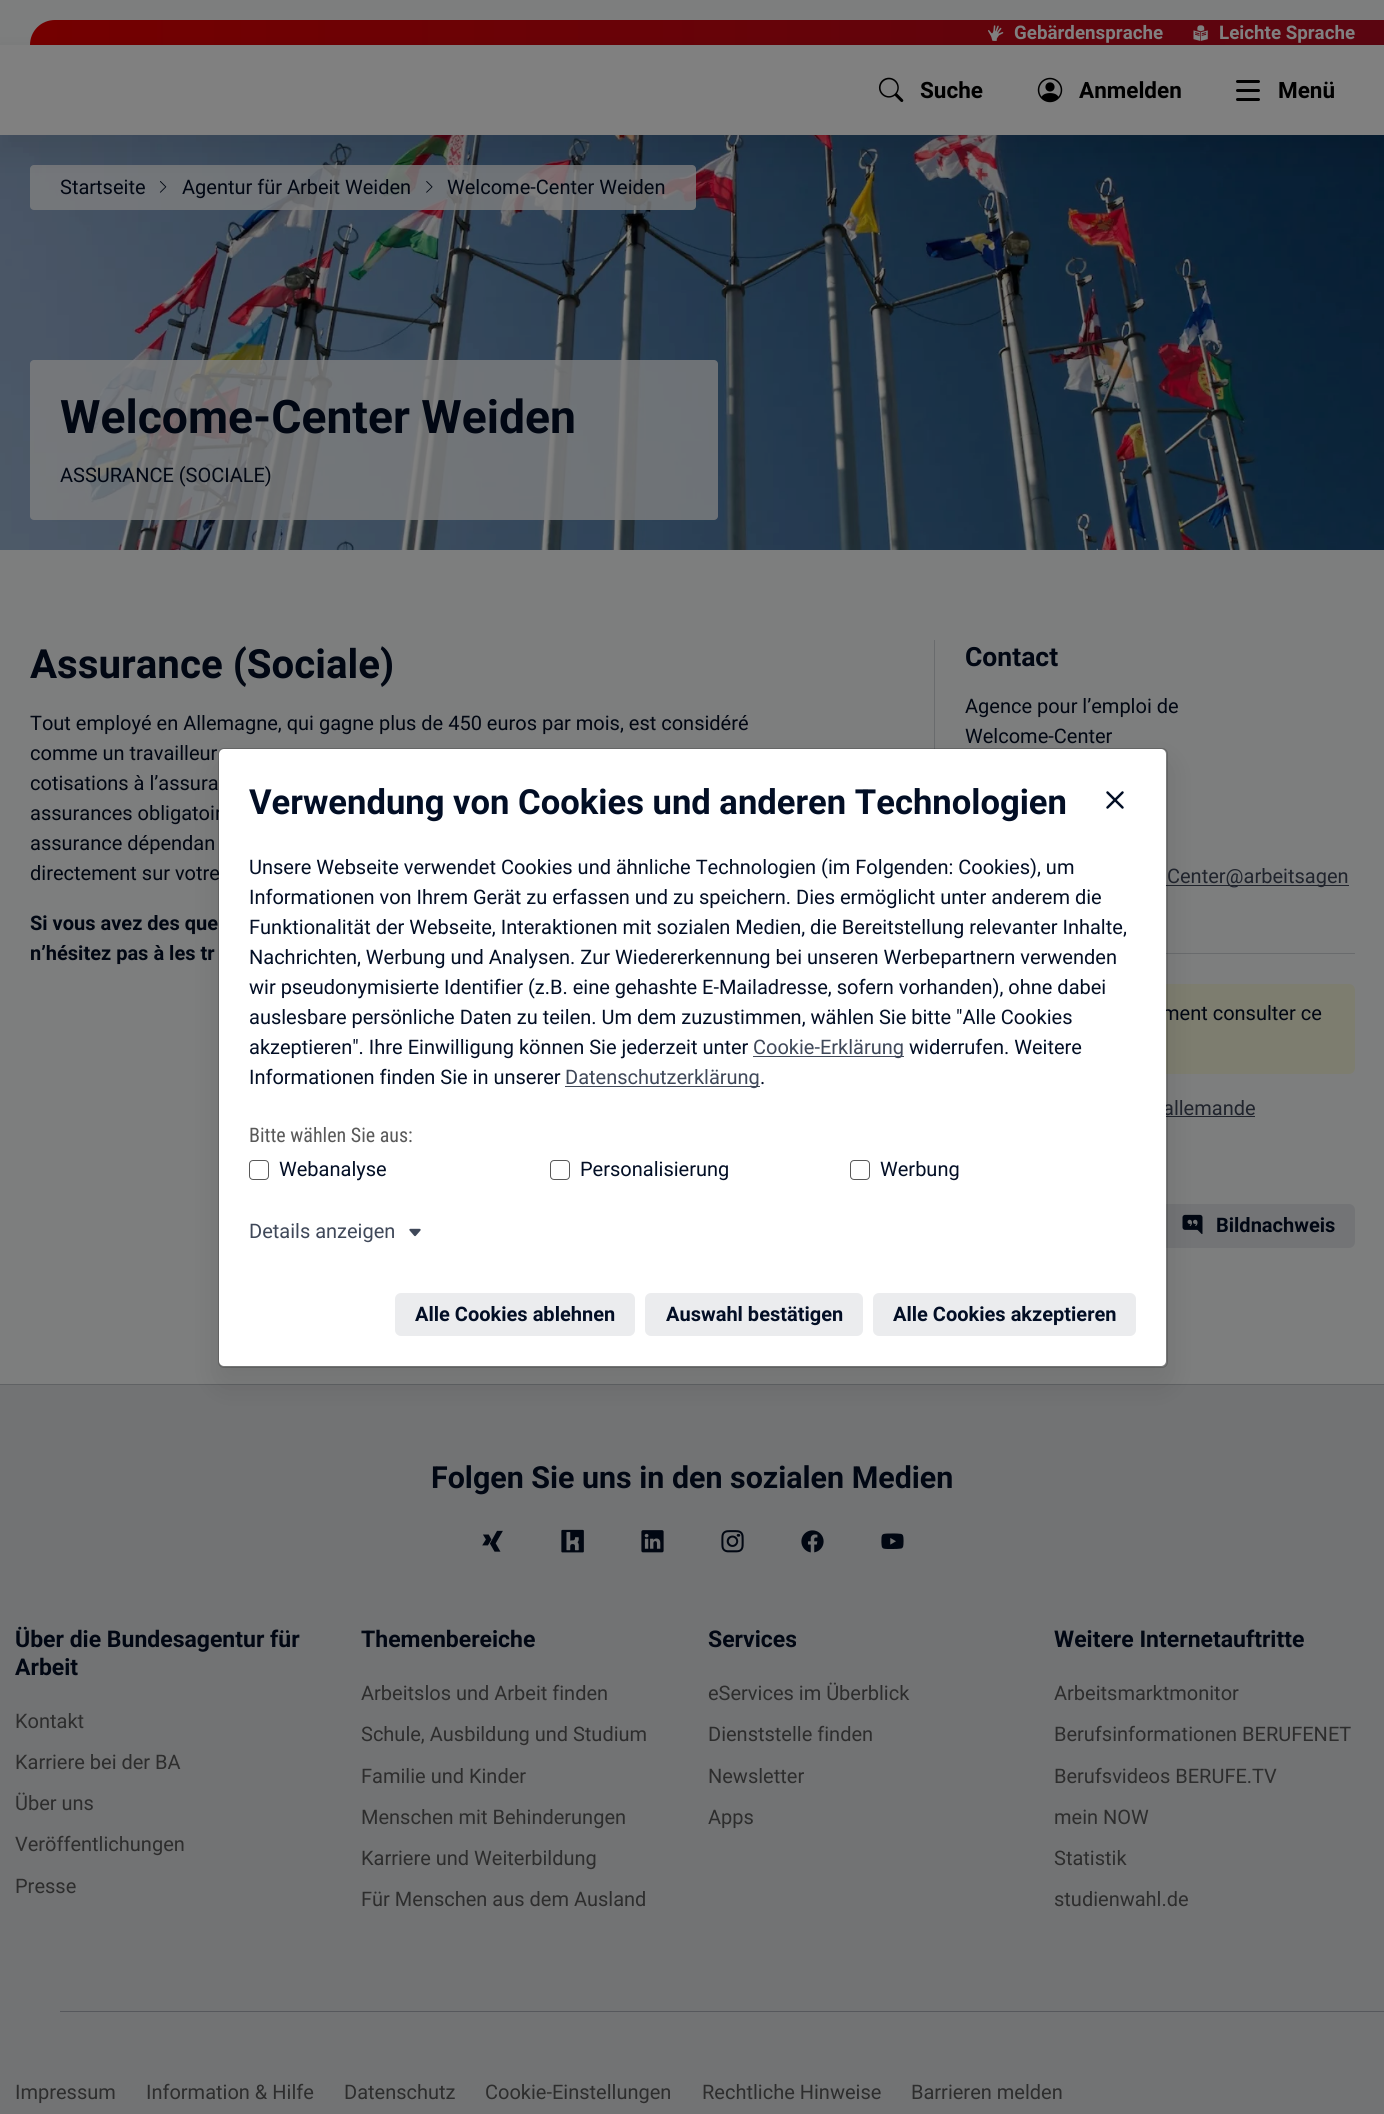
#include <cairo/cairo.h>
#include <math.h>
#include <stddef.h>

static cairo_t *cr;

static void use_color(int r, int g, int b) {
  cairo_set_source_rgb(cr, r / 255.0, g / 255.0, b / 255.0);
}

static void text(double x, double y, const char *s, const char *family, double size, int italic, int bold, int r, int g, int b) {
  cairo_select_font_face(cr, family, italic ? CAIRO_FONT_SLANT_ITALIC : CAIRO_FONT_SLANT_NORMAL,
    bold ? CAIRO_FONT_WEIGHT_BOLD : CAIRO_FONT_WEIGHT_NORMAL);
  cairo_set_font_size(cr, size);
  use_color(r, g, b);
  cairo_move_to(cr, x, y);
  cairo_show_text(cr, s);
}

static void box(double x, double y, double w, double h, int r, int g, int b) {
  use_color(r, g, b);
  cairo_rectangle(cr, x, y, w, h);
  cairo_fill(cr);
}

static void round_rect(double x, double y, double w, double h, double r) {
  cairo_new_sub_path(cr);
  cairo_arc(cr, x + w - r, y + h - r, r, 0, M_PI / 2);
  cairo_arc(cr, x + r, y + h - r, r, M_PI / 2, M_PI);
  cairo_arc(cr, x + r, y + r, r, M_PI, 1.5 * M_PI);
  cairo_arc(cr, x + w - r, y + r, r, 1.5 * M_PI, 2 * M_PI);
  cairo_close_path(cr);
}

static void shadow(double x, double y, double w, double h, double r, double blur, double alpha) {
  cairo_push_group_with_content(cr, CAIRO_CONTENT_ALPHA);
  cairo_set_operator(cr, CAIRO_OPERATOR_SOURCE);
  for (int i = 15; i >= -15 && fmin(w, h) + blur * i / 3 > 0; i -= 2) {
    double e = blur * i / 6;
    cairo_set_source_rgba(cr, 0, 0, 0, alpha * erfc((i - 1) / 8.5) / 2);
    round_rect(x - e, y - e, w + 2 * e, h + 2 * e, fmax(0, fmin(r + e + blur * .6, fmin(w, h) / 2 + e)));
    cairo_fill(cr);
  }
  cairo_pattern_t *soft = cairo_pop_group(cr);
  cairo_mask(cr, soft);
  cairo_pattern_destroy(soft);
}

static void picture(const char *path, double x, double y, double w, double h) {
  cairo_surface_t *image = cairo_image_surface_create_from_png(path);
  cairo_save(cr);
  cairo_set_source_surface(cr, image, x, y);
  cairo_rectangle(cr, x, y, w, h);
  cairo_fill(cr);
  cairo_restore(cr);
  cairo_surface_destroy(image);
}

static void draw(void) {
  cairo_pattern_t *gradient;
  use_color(125, 126, 126);
  cairo_paint(cr);
  gradient = cairo_pattern_create_linear(30, 33, 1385, 32);
  cairo_pattern_add_color_stop_rgba(gradient, 0, 0.455, 0, 0, 1);
  cairo_pattern_add_color_stop_rgba(gradient, 1, 0.353, 0.02, 0.063, 1);
  cairo_set_source(cr, gradient);
  cairo_pattern_destroy(gradient);
  cairo_new_path(cr);
  cairo_move_to(cr, 55, 20);
  cairo_line_to(cr, 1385, 20);
  cairo_line_to(cr, 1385, 45);
  cairo_line_to(cr, 30, 45);
  cairo_curve_to(cr, 30, 31, 41, 20, 55, 20);
  cairo_close_path(cr);
  cairo_fill(cr);
  picture("img_05.png", 0, 135, 1384, 415);
  cairo_set_source_rgba(cr, 0.502, 0.502, 0.502, 0.8);
  round_rect(30, 165, 666, 45, 4);
  cairo_fill(cr);
  picture("img_06.png", 159, 181, 8, 12);
  picture("img_07.png", 426, 181, 7, 12);
  use_color(0, 0, 0);
  shadow(-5, 55, 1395, 100, 0, 15, 0.08);
  picture("img_01.png", 988, 25, 16, 16);
  picture("img_02.png", 1193, 25, 15, 16);
  box(0, 45, 1384, 90, 128, 128, 128);
  picture("img_03.png", 878, 77, 26, 25);
  picture("img_04.png", 1037, 77, 26, 26);
  use_color(0, 0, 0);
  round_rect(1236, 89, 24, 3, 1.5);
  cairo_fill(cr);
  round_rect(1236, 80, 24, 3, 1.5);
  cairo_fill(cr);
  round_rect(1236, 98, 24, 3, 1.5);
  cairo_fill(cr);
  cairo_set_source_rgba(cr, 0.502, 0.502, 0.502, 0.8);
  round_rect(30, 360, 688, 160, 4);
  cairo_fill(cr);
  box(934, 640, 1, 109, 105, 107, 109);
  box(1166, 885, 183, 1, 32, 36, 45);
  box(1166, 953, 189, 1, 105, 107, 109);
  use_color(125, 125, 111);
  round_rect(965, 984, 390, 90, 6);
  cairo_fill(cr);
  box(1166, 1116, 89, 1, 32, 36, 45);
  use_color(115, 116, 118);
  round_rect(1161, 1204, 194, 44, 6);
  cairo_fill(cr);
  picture("img_08.png", 1182, 1214, 21, 20);
  box(0, 1385, 1384, 729, 114, 115, 116);
  box(0, 1384, 1384, 1, 96, 98, 100);
  use_color(0, 0, 0);
  shadow(213, 758, 960, 630, 11, 15, 0.08);
  picture("img_11.png", 482, 1530, 21, 22);
  picture("img_12.png", 561, 1529, 23, 24);
  picture("img_13.png", 641, 1530, 23, 23);
  picture("img_14.png", 721, 1530, 23, 23);
  picture("img_15.png", 801, 1530, 23, 23);
  picture("img_16.png", 881, 1533, 23, 16);
  box(60, 2011, 1324, 1, 86, 88, 92);
  text(1014, 39, "Gebärdensprache", "Roboto", 18.75, 0, 1, 128, 128, 128);
  text(1219, 39, "Leichte Sprache", "Roboto", 18.75, 0, 1, 128, 128, 128);
  text(920, 98, "Suche", "Roboto", 22.5, 0, 1, 0, 0, 0);
  text(1079, 98, "Anmelden", "Roboto", 22.5, 0, 1, 0, 0, 0);
  text(1278, 98, "Menü", "Roboto", 22.5, 0, 1, 0, 0, 0);
  text(60, 194, "Startseite", "Roboto", 20, 0, 0, 1, 7, 19);
  text(182, 194, "Agentur für Arbeit Weiden", "Roboto", 20, 0, 0, 1, 7, 19);
  text(447, 194, "Welcome-Center Weiden", "Roboto", 20, 0, 0, 1, 7, 19);
  text(60, 433, "Welcome-Center Weiden", "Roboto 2", 46.25, 0, 1, 1, 7, 19);
  text(60, 482, "ASSURANCE (SOCIALE)", "Roboto", 20, 0, 0, 1, 7, 19);
  text(30, 678, "Assurance (Sociale)", "Roboto", 40.25, 0, 1, 1, 7, 19);
  text(30, 730, "Tout employé en Allemagne, qui gagne plus de 450 euros par mois, est considéré", "Roboto", 20, 0, 0, 1, 7, 19);
  text(30, 760, "comme un travailleur", "Roboto", 20, 0, 0, 1, 7, 19);
  text(30, 790, "cotisations à l’assura", "Roboto", 20, 0, 0, 1, 7, 19);
  text(30, 820, "assurances obligatoir", "Roboto", 20, 0, 0, 1, 7, 19);
  text(30, 850, "assurance dépendan", "Roboto", 20, 0, 0, 1, 7, 19);
  text(30, 880, "directement sur votre", "Roboto", 20, 0, 0, 1, 7, 19);
  text(30, 930, "Si vous avez des que", "Roboto", 20, 0, 1, 1, 7, 19);
  text(30, 960, "n’hésitez pas à les tr", "Roboto", 20, 0, 1, 1, 7, 19);
  text(965, 666, "Contact", "Roboto", 26.5, 0, 1, 1, 7, 19);
  text(965, 713, "Agence pour l’emploi de", "Roboto", 20, 0, 0, 1, 7, 19);
  text(965, 743, "Welcome-Center", "Roboto", 20, 0, 0, 1, 7, 19);
  text(1167, 883, "Center@arbeitsagen", "Roboto", 20, 0, 0, 32, 36, 45);
  text(1162, 1020, "ment consulter ce", "Roboto", 20, 0, 0, 1, 7, 19);
  text(1163, 1115, "allemande", "Roboto", 20, 0, 0, 32, 36, 45);
  text(1216, 1232, "Bildnachweis", "Roboto", 20, 0, 1, 1, 7, 19);
  use_color(255, 255, 255);
  round_rect(219, 749, 947, 617, 5);
  cairo_fill(cr);
  round_rect(218.5, 748.5, 949, 619, 5.5);
  cairo_set_source_rgba(cr, 0, 0, 0, 0.18);
  cairo_set_line_width(cr, 1);
  cairo_stroke(cr);
  text(249, 814, "Verwendung von Cookies und anderen Technologien", "Roboto 2", 34.6, 0, 1, 2, 14, 37);
  picture("img_09.png", 1106, 791, 18, 18);
  text(249, 874, "Unsere Webseite verwendet Cookies und ähnliche Technologien (im Folgenden: Cookies), um", "Roboto", 20, 0, 0, 2, 14, 37);
  text(249, 904, "Informationen von Ihrem Gerät zu erfassen und zu speichern. Dies ermöglicht unter anderem die", "Roboto", 20, 0, 0, 2, 14, 37);
  text(249, 934, "Funktionalität der Webseite, Interaktionen mit sozialen Medien, die Bereitstellung relevanter Inhalte,", "Roboto", 20, 0, 0, 2, 14, 37);
  text(249, 964, "Nachrichten, Werbung und Analysen. Zur Wiedererkennung bei unseren Werbepartnern verwenden", "Roboto", 20, 0, 0, 2, 14, 37);
  text(249, 994, "wir pseudonymisierte Identifier (z.B. eine gehashte E-Mailadresse, sofern vorhanden), ohne dabei", "Roboto", 20, 0, 0, 2, 14, 37);
  text(249, 1024, "auslesbare persönliche Daten zu teilen. Um dem zuzustimmen, wählen Sie bitte \"Alle Cookies", "Roboto", 20, 0, 0, 2, 14, 37);
  text(249, 1054, "akzeptieren\". Ihre Einwilligung können Sie jederzeit unter", "Roboto", 20, 0, 0, 2, 14, 37);
  box(753, 1056, 151, 1, 63, 72, 89);
  text(753, 1054, "Cookie-Erklärung", "Roboto", 20, 0, 0, 63, 72, 89);
  text(909, 1054, "widerrufen. Weitere", "Roboto", 20, 0, 0, 2, 14, 37);
  text(249, 1084, "Informationen finden Sie in unserer", "Roboto", 20, 0, 0, 2, 14, 37);
  box(565, 1086, 195, 1, 63, 72, 89);
  text(565, 1084, "Datenschutzerklärung", "Roboto", 20, 0, 0, 63, 72, 89);
  text(760, 1084, ".", "Roboto", 20, 0, 0, 2, 14, 37);
  text(249, 1142, "Bitte wählen Sie aus:", "Roboto Condensed", 20, 0, 0, 89, 89, 89);
  round_rect(249.5, 1160.5, 19, 19, 3.5);
  cairo_stroke(cr);
  text(279, 1176, "Webanalyse", "Roboto", 20, 0, 0, 2, 14, 37);
  round_rect(550.5, 1160.5, 19, 19, 3.5);
  use_color(89, 89, 89);
  cairo_stroke(cr);
  text(580, 1176, "Personalisierung", "Roboto", 20, 0, 0, 2, 14, 37);
  round_rect(850.5, 1160.5, 19, 19, 3.5);
  use_color(89, 89, 89);
  cairo_stroke(cr);
  text(880, 1176, "Werbung", "Roboto", 20, 0, 0, 2, 14, 37);
  text(249, 1238, "Details anzeigen", "Roboto", 20, 0, 0, 63, 72, 89);
  picture("img_10.png", 409, 1228, 12, 9);
  use_color(235, 236, 238);
  round_rect(395, 1293, 240, 43, 6);
  cairo_fill(cr);
  text(415, 1321, "Alle Cookies ablehnen", "Roboto", 20, 0, 1, 2, 14, 37);
  use_color(235, 236, 238);
  round_rect(645, 1293, 218, 43, 6);
  cairo_fill(cr);
  text(666, 1321, "Auswahl bestätigen", "Roboto", 20, 0, 1, 2, 14, 37);
  use_color(235, 236, 238);
  round_rect(873, 1293, 263, 43, 6);
  cairo_fill(cr);
  text(893, 1321, "Alle Cookies akzeptieren", "Roboto", 20, 0, 1, 2, 14, 37);
  text(431, 1488, "Folgen Sie uns in den sozialen Medien", "Roboto 2", 30.4, 0, 1, 1, 7, 19);
  text(15, 1647, "Über die Bundesagentur für", "Roboto 2", 23, 0, 1, 1, 7, 19);
  text(15, 1675, "Arbeit", "Roboto 2", 23, 0, 1, 1, 7, 19);
  text(15, 1728, "Kontakt", "Roboto", 20, 0, 0, 45, 45, 45);
  text(15, 1769, "Karriere bei der BA", "Roboto", 20, 0, 0, 45, 45, 45);
  text(15, 1810, "Über uns", "Roboto", 20, 0, 0, 45, 45, 45);
  text(15, 1851, "Veröffentlichungen", "Roboto", 20, 0, 0, 45, 45, 45);
  text(15, 1893, "Presse", "Roboto", 20, 0, 0, 45, 45, 45);
  text(361, 1647, "Themenbereiche", "Roboto 2", 23, 0, 1, 1, 7, 19);
  text(361, 1700, "Arbeitslos und Arbeit finden", "Roboto", 20, 0, 0, 45, 45, 45);
  text(361, 1741, "Schule, Ausbildung und Studium", "Roboto", 20, 0, 0, 45, 45, 45);
  text(361, 1783, "Familie und Kinder", "Roboto", 20, 0, 0, 45, 45, 45);
  text(361, 1824, "Menschen mit Behinderungen", "Roboto", 20, 0, 0, 45, 45, 45);
  text(361, 1865, "Karriere und Weiterbildung", "Roboto", 20, 0, 0, 45, 45, 45);
  text(361, 1906, "Für Menschen aus dem Ausland", "Roboto", 20, 0, 0, 45, 45, 45);
  text(708, 1647, "Services", "Roboto 2", 23, 0, 1, 1, 7, 19);
  text(708, 1700, "eServices im Überblick", "Roboto", 20, 0, 0, 45, 45, 45);
  text(708, 1741, "Dienststelle finden", "Roboto", 20, 0, 0, 45, 45, 45);
  text(708, 1783, "Newsletter", "Roboto", 20, 0, 0, 45, 45, 45);
  text(708, 1824, "Apps", "Roboto", 20, 0, 0, 45, 45, 45);
  text(1054, 1647, "Weitere Internetauftritte", "Roboto 2", 23, 0, 1, 1, 7, 19);
  text(1054, 1700, "Arbeitsmarktmonitor", "Roboto", 20, 0, 0, 45, 45, 45);
  text(1054, 1741, "Berufsinformationen BERUFENET", "Roboto", 20, 0, 0, 45, 45, 45);
  text(1054, 1783, "Berufsvideos BERUFE.TV", "Roboto", 20, 0, 0, 45, 45, 45);
  text(1054, 1824, "mein NOW", "Roboto", 20, 0, 0, 45, 45, 45);
  text(1054, 1865, "Statistik", "Roboto", 20, 0, 0, 45, 45, 45);
  text(1054, 1906, "studienwahl.de", "Roboto", 20, 0, 0, 45, 45, 45);
  text(15, 2099, "Impressum", "Roboto", 20, 0, 0, 45, 45, 45);
  text(146, 2099, "Information & Hilfe", "Roboto", 20, 0, 0, 45, 45, 45);
  text(344, 2099, "Datenschutz", "Roboto", 20, 0, 0, 45, 45, 45);
  text(485, 2099, "Cookie-Einstellungen", "Roboto", 20, 0, 0, 45, 45, 45);
  text(702, 2099, "Rechtliche Hinweise", "Roboto", 20, 0, 0, 45, 45, 45);
  text(911, 2099, "Barrieren melden", "Roboto", 20, 0, 0, 45, 45, 45);
}

int main(void) {
  cairo_surface_t *surface = cairo_image_surface_create(CAIRO_FORMAT_RGB24, 1384, 2114);
  cr = cairo_create(surface);
  cairo_font_options_t *options = cairo_font_options_create();
  cairo_font_options_set_hint_metrics(options, CAIRO_HINT_METRICS_OFF);
  cairo_font_options_set_hint_style(options, CAIRO_HINT_STYLE_NONE);
  cairo_set_font_options(cr, options);
  cairo_set_miter_limit(cr, 4);
  draw();
  cairo_surface_write_to_png(surface, "out.png");
  cairo_font_options_destroy(options);
  cairo_destroy(cr);
  cairo_surface_destroy(surface);
  return 0;
}
